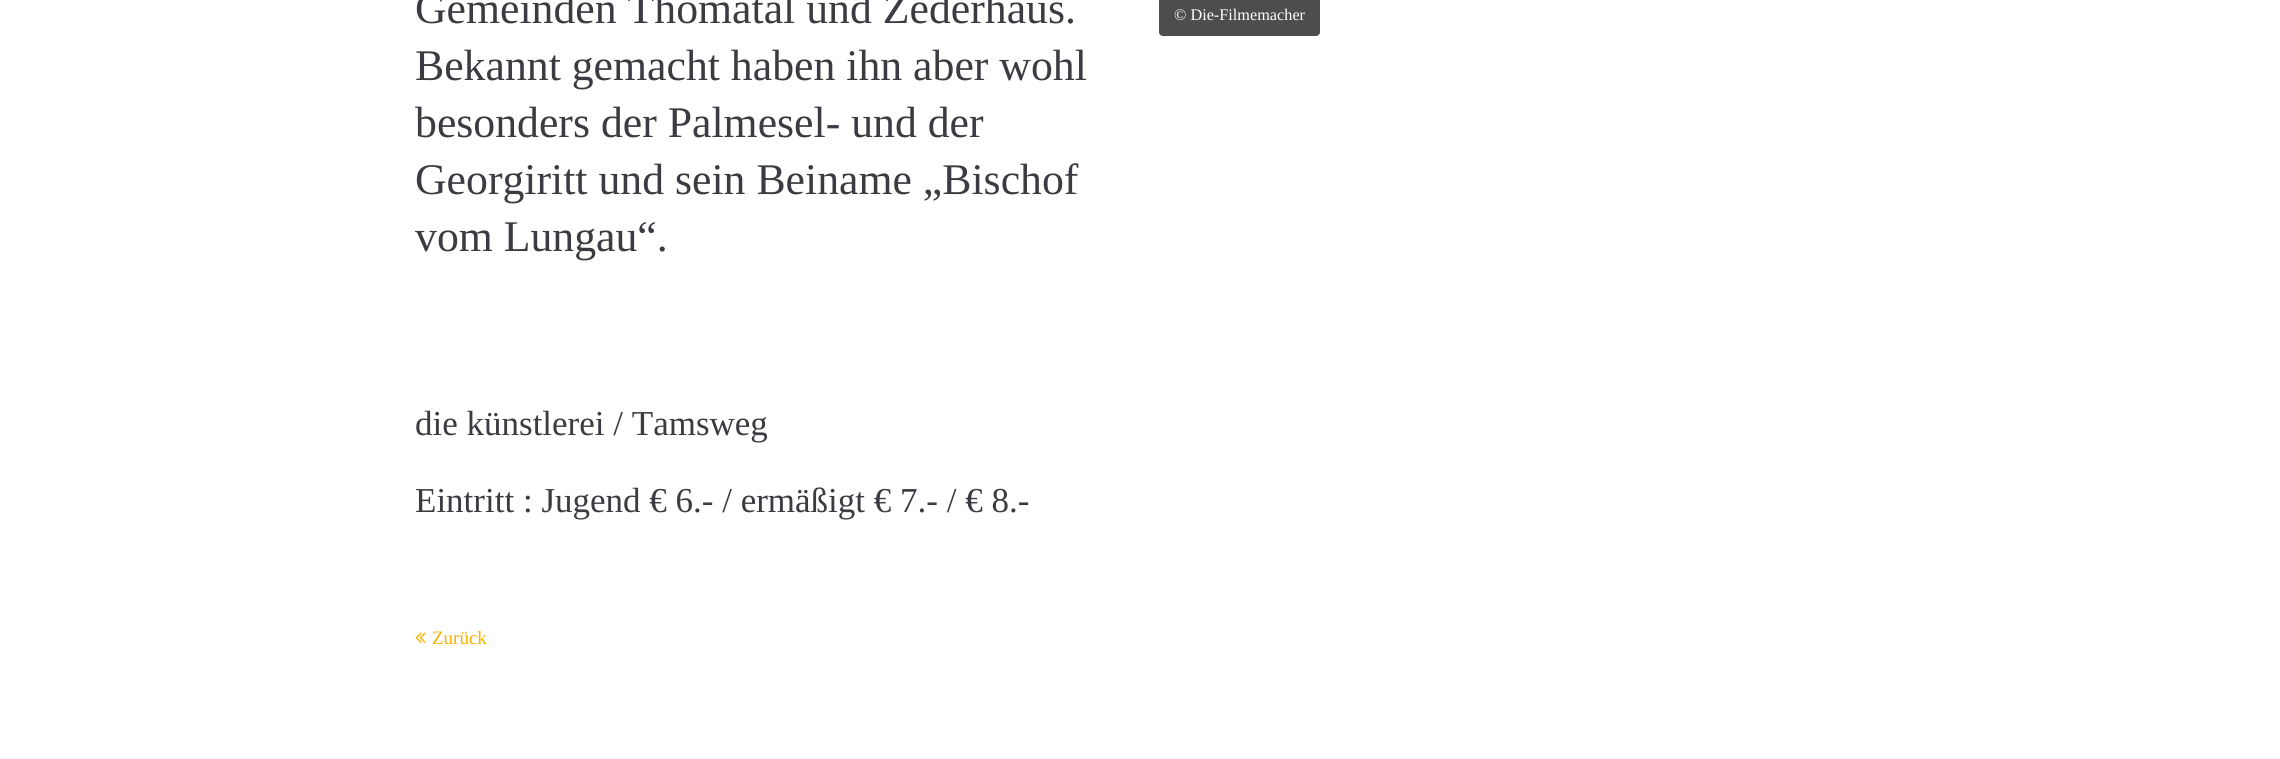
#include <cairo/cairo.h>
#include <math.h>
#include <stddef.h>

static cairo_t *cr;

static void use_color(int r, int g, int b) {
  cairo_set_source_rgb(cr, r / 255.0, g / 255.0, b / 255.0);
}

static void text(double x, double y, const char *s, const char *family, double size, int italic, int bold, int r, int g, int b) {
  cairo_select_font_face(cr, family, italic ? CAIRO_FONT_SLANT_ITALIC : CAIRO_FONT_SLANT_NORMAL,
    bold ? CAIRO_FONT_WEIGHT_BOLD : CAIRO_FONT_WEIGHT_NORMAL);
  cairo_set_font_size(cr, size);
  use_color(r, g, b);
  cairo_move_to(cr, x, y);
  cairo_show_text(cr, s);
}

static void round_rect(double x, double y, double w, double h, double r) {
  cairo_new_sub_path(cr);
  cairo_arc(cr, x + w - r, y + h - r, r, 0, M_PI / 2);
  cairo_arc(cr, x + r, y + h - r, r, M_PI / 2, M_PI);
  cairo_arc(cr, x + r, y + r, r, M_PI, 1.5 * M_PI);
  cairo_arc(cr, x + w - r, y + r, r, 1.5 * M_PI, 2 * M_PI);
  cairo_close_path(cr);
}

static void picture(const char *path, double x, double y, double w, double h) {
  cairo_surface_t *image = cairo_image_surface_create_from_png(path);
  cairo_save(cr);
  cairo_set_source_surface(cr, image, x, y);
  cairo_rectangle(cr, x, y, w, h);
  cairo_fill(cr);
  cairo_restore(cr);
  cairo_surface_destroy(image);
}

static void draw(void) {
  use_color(255, 255, 255);
  cairo_paint(cr);
  use_color(77, 77, 77);
  round_rect(1159, -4, 161, 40, 4);
  cairo_fill(cr);
  picture("img_01.png", 415, 632, 11, 11);
  text(415, 23, "Gemeinden Thomatal und Zederhaus.", "Liberation Serif", 43.75, 0, 0, 59, 60, 66);
  text(415, 80, "Bekannt gemacht haben ihn aber wohl", "Liberation Serif", 43.75, 0, 0, 59, 60, 66);
  text(415, 137, "besonders der Palmesel- und der", "Liberation Serif", 43.75, 0, 0, 59, 60, 66);
  text(415, 194, "Georgiritt und sein Beiname „Bischof", "Liberation Serif", 43.75, 0, 0, 59, 60, 66);
  text(415, 251, "vom Lungau“.", "Liberation Serif", 43.75, 0, 0, 59, 60, 66);
  text(415, 435, "die künstlerei / Tamsweg", "Liberation Serif", 35, 0, 0, 59, 60, 66);
  text(415, 512, "Eintritt : Jugend € 6.- / ermäßigt € 7.- / € 8.-", "Liberation Serif", 35, 0, 0, 59, 60, 66);
  text(1174, 20, "© Die-Filmemacher", "Liberation Serif", 16.25, 0, 0, 255, 255, 255);
  text(432, 644, "Zurück", "Liberation Serif", 19, 0, 0, 248, 178, 0);
}

int main(void) {
  cairo_surface_t *surface = cairo_image_surface_create(CAIRO_FORMAT_RGB24, 2280, 759);
  cr = cairo_create(surface);
  cairo_font_options_t *options = cairo_font_options_create();
  cairo_font_options_set_hint_metrics(options, CAIRO_HINT_METRICS_OFF);
  cairo_font_options_set_hint_style(options, CAIRO_HINT_STYLE_NONE);
  cairo_set_font_options(cr, options);
  cairo_set_miter_limit(cr, 4);
  draw();
  cairo_surface_write_to_png(surface, "out.png");
  cairo_font_options_destroy(options);
  cairo_destroy(cr);
  cairo_surface_destroy(surface);
  return 0;
}
